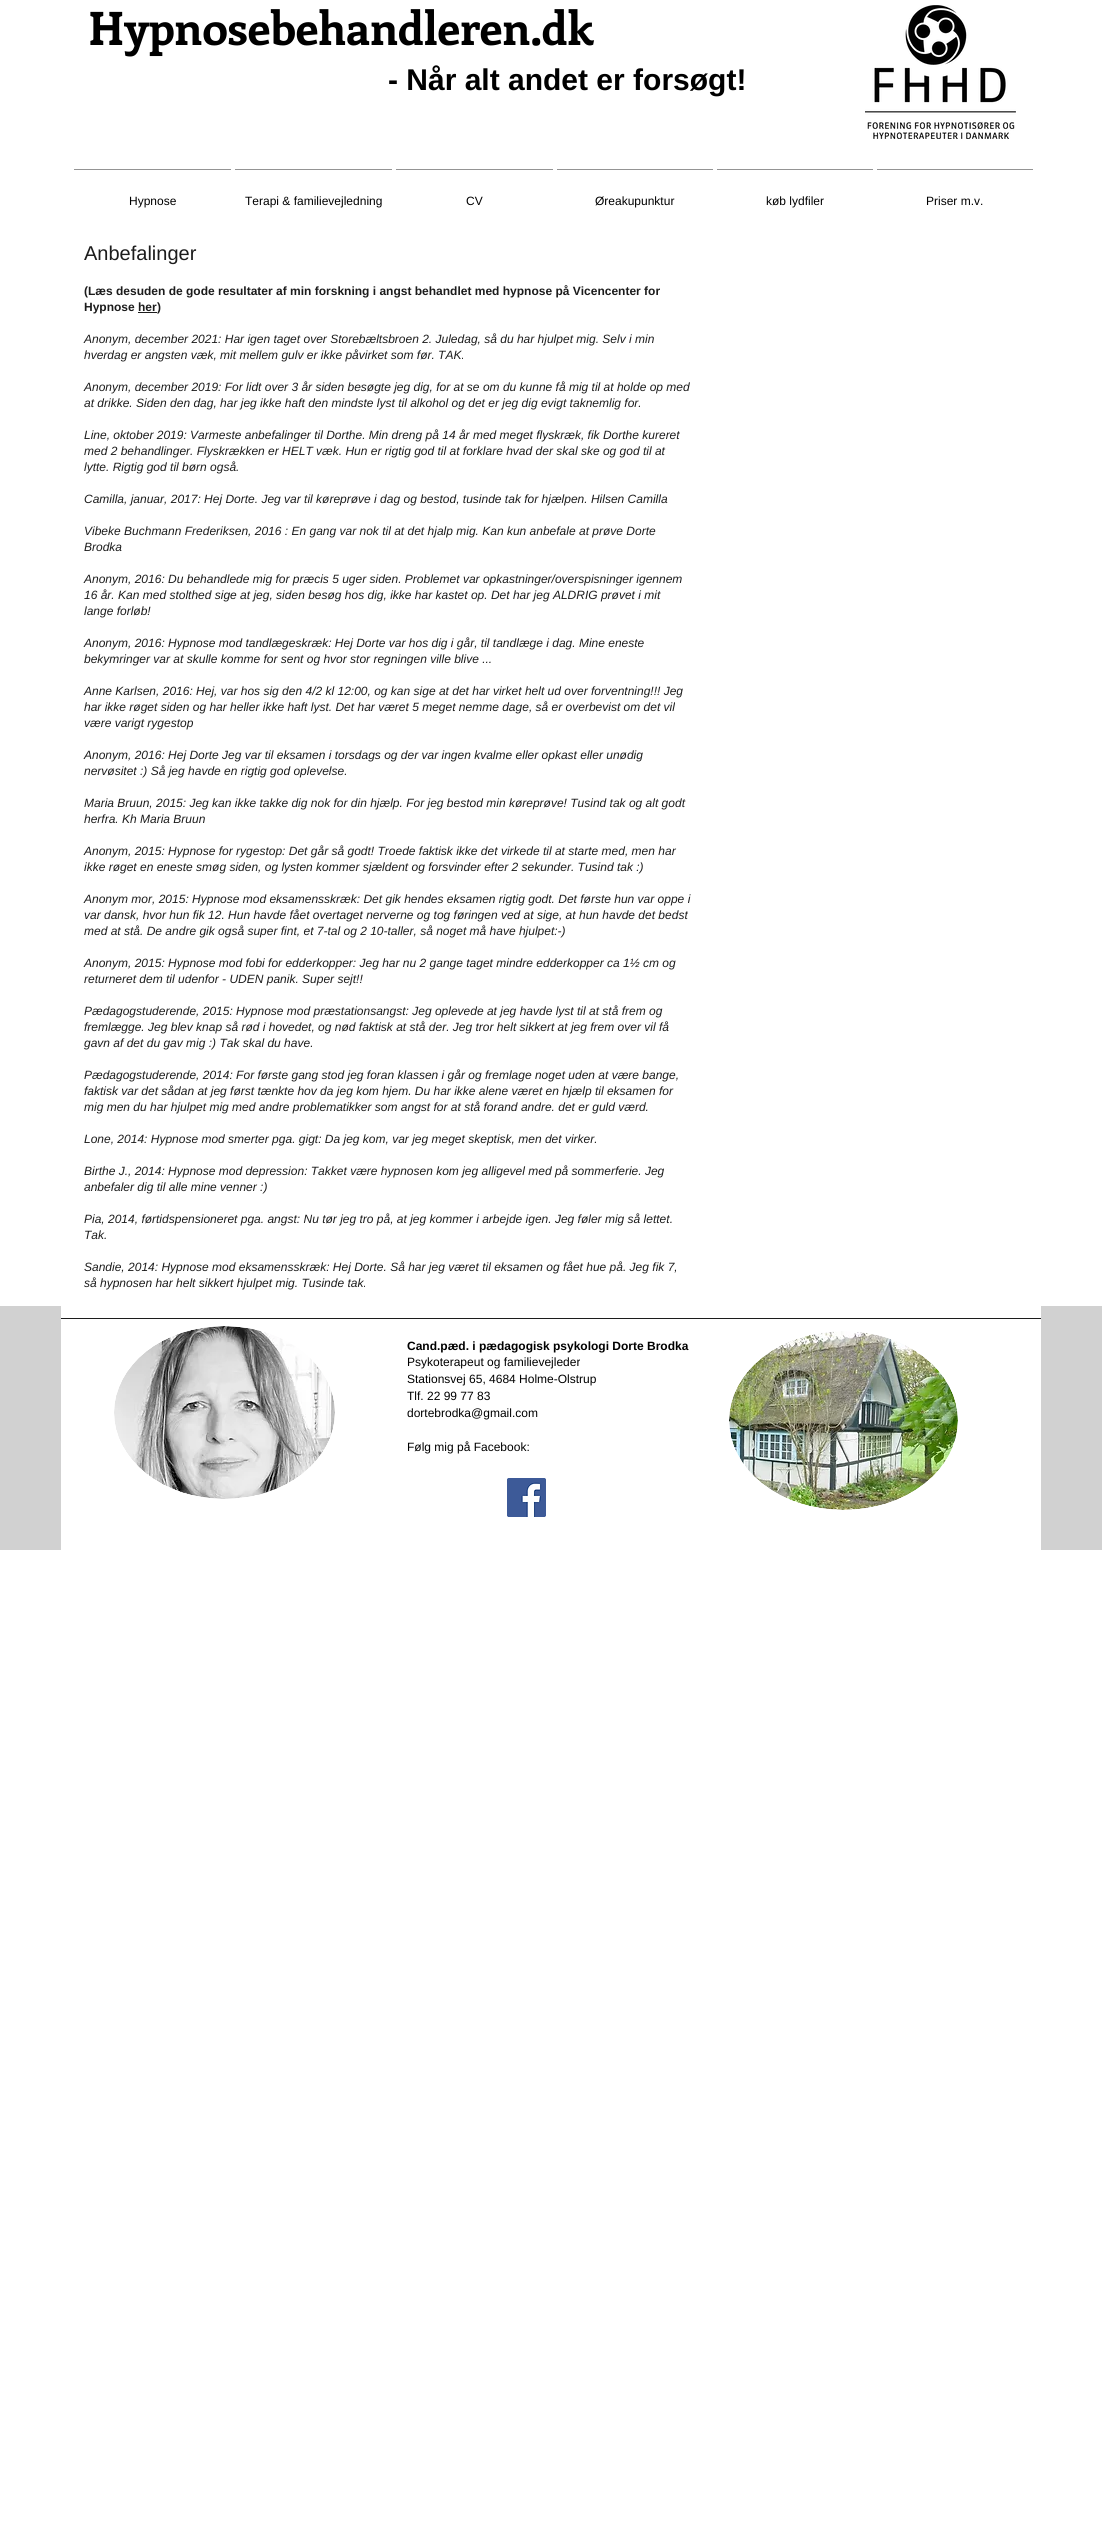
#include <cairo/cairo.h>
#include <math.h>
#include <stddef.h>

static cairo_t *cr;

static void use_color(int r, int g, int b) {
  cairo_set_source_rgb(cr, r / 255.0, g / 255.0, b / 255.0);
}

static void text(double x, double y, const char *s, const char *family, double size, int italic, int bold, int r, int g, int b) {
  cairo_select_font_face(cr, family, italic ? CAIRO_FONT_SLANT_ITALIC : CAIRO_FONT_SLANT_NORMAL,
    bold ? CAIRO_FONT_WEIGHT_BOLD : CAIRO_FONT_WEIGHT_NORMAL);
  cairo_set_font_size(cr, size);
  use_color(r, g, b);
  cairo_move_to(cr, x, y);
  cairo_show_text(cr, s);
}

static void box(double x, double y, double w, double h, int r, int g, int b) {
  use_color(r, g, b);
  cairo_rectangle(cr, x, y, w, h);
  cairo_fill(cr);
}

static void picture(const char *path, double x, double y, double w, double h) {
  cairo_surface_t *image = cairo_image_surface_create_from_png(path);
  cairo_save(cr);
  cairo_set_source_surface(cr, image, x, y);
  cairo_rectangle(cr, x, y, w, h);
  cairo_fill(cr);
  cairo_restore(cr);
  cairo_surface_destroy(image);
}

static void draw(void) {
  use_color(255, 255, 255);
  cairo_paint(cr);
  picture("img_01.png", 865, 5, 151, 134);
  box(74, 169, 157, 1, 148, 148, 148);
  box(235, 169, 157, 1, 148, 148, 148);
  box(396, 169, 157, 1, 148, 148, 148);
  box(557, 169, 156, 1, 148, 148, 148);
  box(717, 169, 156, 1, 148, 148, 148);
  box(877, 169, 156, 1, 148, 148, 148);
  box(138, 312, 19, 1, 28, 28, 28);
  box(0, 1306, 1102, 244, 209, 209, 209);
  box(61, 1306, 980, 244, 255, 255, 255);
  box(61, 1318, 980, 1, 28, 28, 28);
  picture("img_02.png", 114, 1326, 221, 173);
  picture("img_03.png", 729, 1331, 229, 179);
  picture("img_04.png", 507, 1478, 39, 39);
  text(88, 45, "Hypnosebehandleren.dk", "Enriqueta", 46, 0, 1, 0, 0, 0);
  text(388, 90, "- Når alt andet er forsøgt!", "Liberation Sans", 30, 0, 1, 0, 0, 0);
  text(129, 205, "Hypnose", "Liberation Sans", 12, 0, 0, 0, 0, 0);
  text(245, 205, "Terapi & familievejledning", "Liberation Sans", 12, 0, 0, 0, 0, 0);
  text(466, 205, "CV", "Liberation Sans", 12, 0, 0, 0, 0, 0);
  text(595, 205, "Øreakupunktur", "Liberation Sans", 12, 0, 0, 0, 0, 0);
  text(766, 205, "køb lydfiler", "Liberation Sans", 12, 0, 0, 0, 0, 0);
  text(926, 205, "Priser m.v.", "Liberation Sans", 12, 0, 0, 0, 0, 0);
  text(84, 260, "Anbefalinger", "Liberation Sans", 20, 0, 0, 28, 28, 28);
  text(84, 295, "(Læs desuden de gode resultater af min forskning i angst behandlet med hypnose på Vicencenter for", "Liberation Sans", 12, 0, 1, 28, 28, 28);
  text(84, 311, "Hypnose her", "Liberation Sans", 12, 0, 1, 28, 28, 28);
  text(157, 311, ")", "Liberation Sans", 12, 0, 1, 28, 28, 28);
  text(84, 343, "Anonym, december 2021: Har igen taget over Storebæltsbroen 2. Juledag, så du har hjulpet mig. Selv i min", "Liberation Sans", 12, 1, 0, 28, 28, 28);
  text(84, 359, "hverdag er angsten væk, mit mellem gulv er ikke påvirket som før. TAK.", "Liberation Sans", 12, 1, 0, 28, 28, 28);
  text(84, 391, "Anonym, december 2019: For lidt over 3 år siden besøgte jeg dig, for at se om du kunne få mig til at holde op med", "Liberation Sans", 12, 1, 0, 28, 28, 28);
  text(84, 407, "at drikke. Siden den dag, har jeg ikke haft den mindste lyst til alkohol og det er jeg dig evigt taknemlig for.", "Liberation Sans", 12, 1, 0, 28, 28, 28);
  text(84, 439, "Line, oktober 2019: Varmeste anbefalinger til Dorthe. Min dreng på 14 år med meget flyskræk, fik Dorthe kureret", "Liberation Sans", 12, 1, 0, 28, 28, 28);
  text(84, 455, "med 2 behandlinger. Flyskrækken er HELT væk. Hun er rigtig god til at forklare hvad der skal ske og god til at", "Liberation Sans", 12, 1, 0, 28, 28, 28);
  text(84, 471, "lytte. Rigtig god til børn også.", "Liberation Sans", 12, 1, 0, 28, 28, 28);
  text(84, 503, "Camilla, januar, 2017: Hej Dorte. Jeg var til køreprøve i dag og bestod, tusinde tak for hjælpen. Hilsen Camilla", "Liberation Sans", 12, 1, 0, 28, 28, 28);
  text(84, 535, "Vibeke Buchmann Frederiksen, 2016 : En gang var nok til at det hjalp mig. Kan kun anbefale at prøve Dorte", "Liberation Sans", 12, 1, 0, 28, 28, 28);
  text(84, 551, "Brodka", "Liberation Sans", 12, 1, 0, 28, 28, 28);
  text(84, 583, "Anonym, 2016: Du behandlede mig for præcis 5 uger siden. Problemet var opkastninger/overspisninger igennem", "Liberation Sans", 12, 1, 0, 28, 28, 28);
  text(84, 599, "16 år. Kan med stolthed sige at jeg, siden besøg hos dig, ikke har kastet op. Det har jeg ALDRIG prøvet i mit", "Liberation Sans", 12, 1, 0, 28, 28, 28);
  text(84, 615, "lange forløb!", "Liberation Sans", 12, 1, 0, 28, 28, 28);
  text(84, 647, "Anonym, 2016: Hypnose mod tandlægeskræk: Hej Dorte var hos dig i går, til tandlæge i dag. Mine eneste", "Liberation Sans", 12, 1, 0, 28, 28, 28);
  text(84, 663, "bekymringer var at skulle komme for sent og hvor stor regningen ville blive ...", "Liberation Sans", 12, 1, 0, 28, 28, 28);
  text(84, 695, "Anne Karlsen, 2016: Hej, var hos sig den 4/2 kl 12:00, og kan sige at det har virket helt ud over forventning!!! Jeg", "Liberation Sans", 12, 1, 0, 28, 28, 28);
  text(84, 711, "har ikke røget siden og har heller ikke haft lyst. Det har været 5 meget nemme dage, så er overbevist om det vil", "Liberation Sans", 12, 1, 0, 28, 28, 28);
  text(84, 727, "være varigt rygestop", "Liberation Sans", 12, 1, 0, 28, 28, 28);
  text(84, 759, "Anonym, 2016: Hej Dorte Jeg var til eksamen i torsdags og der var ingen kvalme eller opkast eller unødig", "Liberation Sans", 12, 1, 0, 28, 28, 28);
  text(84, 775, "nervøsitet :) Så jeg havde en rigtig god oplevelse.", "Liberation Sans", 12, 1, 0, 28, 28, 28);
  text(84, 807, "Maria Bruun, 2015: Jeg kan ikke takke dig nok for din hjælp. For jeg bestod min køreprøve! Tusind tak og alt godt", "Liberation Sans", 12, 1, 0, 28, 28, 28);
  text(84, 823, "herfra. Kh Maria Bruun", "Liberation Sans", 12, 1, 0, 28, 28, 28);
  text(84, 855, "Anonym, 2015: Hypnose for rygestop: Det går så godt! Troede faktisk ikke det virkede til at starte med, men har", "Liberation Sans", 12, 1, 0, 28, 28, 28);
  text(84, 871, "ikke røget en eneste smøg siden, og lysten kommer sjældent og forsvinder efter 2 sekunder. Tusind tak :)", "Liberation Sans", 12, 1, 0, 28, 28, 28);
  text(84, 903, "Anonym mor, 2015: Hypnose mod eksamensskræk: Det gik hendes eksamen rigtig godt. Det første hun var oppe i", "Liberation Sans", 12, 1, 0, 28, 28, 28);
  text(84, 919, "var dansk, hvor hun fik 12. Hun havde fået overtaget nerverne og tog føringen ved at sige, at hun havde det bedst", "Liberation Sans", 12, 1, 0, 28, 28, 28);
  text(84, 935, "med at stå. De andre gik også super fint, et 7-tal og 2 10-taller, så noget må have hjulpet:-)", "Liberation Sans", 12, 1, 0, 28, 28, 28);
  text(84, 967, "Anonym, 2015: Hypnose mod fobi for edderkopper: Jeg har nu 2 gange taget mindre edderkopper ca 1½ cm og", "Liberation Sans", 12, 1, 0, 28, 28, 28);
  text(84, 983, "returneret dem til udenfor - UDEN panik. Super sejt!!", "Liberation Sans", 12, 1, 0, 28, 28, 28);
  text(84, 1015, "Pædagogstuderende, 2015: Hypnose mod præstationsangst: Jeg oplevede at jeg havde lyst til at stå frem og", "Liberation Sans", 12, 1, 0, 28, 28, 28);
  text(84, 1031, "fremlægge. Jeg blev knap så rød i hovedet, og nød faktisk at stå der. Jeg tror helt sikkert at jeg frem over vil få", "Liberation Sans", 12, 1, 0, 28, 28, 28);
  text(84, 1047, "gavn af det du gav mig :) Tak skal du have.", "Liberation Sans", 12, 1, 0, 28, 28, 28);
  text(84, 1079, "Pædagogstuderende, 2014: For første gang stod jeg foran klassen i går og fremlage noget uden at være bange,", "Liberation Sans", 12, 1, 0, 28, 28, 28);
  text(84, 1095, "faktisk var det sådan at jeg først tænkte hov da jeg kom hjem. Du har ikke alene været en hjælp til eksamen for", "Liberation Sans", 12, 1, 0, 28, 28, 28);
  text(84, 1111, "mig men du har hjulpet mig med andre problematikker som angst for at stå forand andre. det er guld værd.", "Liberation Sans", 12, 1, 0, 28, 28, 28);
  text(84, 1143, "Lone, 2014: Hypnose mod smerter pga. gigt: Da jeg kom, var jeg meget skeptisk, men det virker.", "Liberation Sans", 12, 1, 0, 28, 28, 28);
  text(84, 1175, "Birthe J., 2014: Hypnose mod depression: Takket være hypnosen kom jeg alligevel med på sommerferie. Jeg", "Liberation Sans", 12, 1, 0, 28, 28, 28);
  text(84, 1191, "anbefaler dig til alle mine venner :)", "Liberation Sans", 12, 1, 0, 28, 28, 28);
  text(84, 1223, "Pia, 2014, førtidspensioneret pga. angst: Nu tør jeg tro på, at jeg kommer i arbejde igen. Jeg føler mig så lettet.", "Liberation Sans", 12, 1, 0, 28, 28, 28);
  text(84, 1239, "Tak.", "Liberation Sans", 12, 1, 0, 28, 28, 28);
  text(84, 1271, "Sandie, 2014: Hypnose mod eksamensskræk: Hej Dorte. Så har jeg været til eksamen og fået hue på. Jeg fik 7,", "Liberation Sans", 12, 1, 0, 28, 28, 28);
  text(84, 1287, "så hypnosen har helt sikkert hjulpet mig. Tusinde tak.", "Liberation Sans", 12, 1, 0, 28, 28, 28);
  text(407, 1350, "Cand.pæd. i pædagogisk psykologi Dorte Brodka", "Liberation Sans", 12, 0, 1, 0, 0, 0);
  text(407, 1366, "Psykoterapeut og familievejleder", "Liberation Sans", 12, 0, 0, 0, 0, 0);
  text(407, 1383, "Stationsvej 65, 4684 Holme-Olstrup", "Liberation Sans", 12, 0, 0, 0, 0, 0);
  text(407, 1400, "Tlf. 22 99 77 83", "Liberation Sans", 12, 0, 0, 0, 0, 0);
  text(407, 1417, "dortebrodka@gmail.com", "Liberation Sans", 12, 0, 0, 0, 0, 0);
  text(407, 1451, "Følg mig på Facebook:", "Liberation Sans", 12, 0, 0, 0, 0, 0);
}

int main(void) {
  cairo_surface_t *surface = cairo_image_surface_create(CAIRO_FORMAT_RGB24, 1102, 2540);
  cr = cairo_create(surface);
  cairo_font_options_t *options = cairo_font_options_create();
  cairo_font_options_set_hint_metrics(options, CAIRO_HINT_METRICS_OFF);
  cairo_font_options_set_hint_style(options, CAIRO_HINT_STYLE_NONE);
  cairo_set_font_options(cr, options);
  cairo_set_miter_limit(cr, 4);
  draw();
  cairo_surface_write_to_png(surface, "out.png");
  cairo_font_options_destroy(options);
  cairo_destroy(cr);
  cairo_surface_destroy(surface);
  return 0;
}
